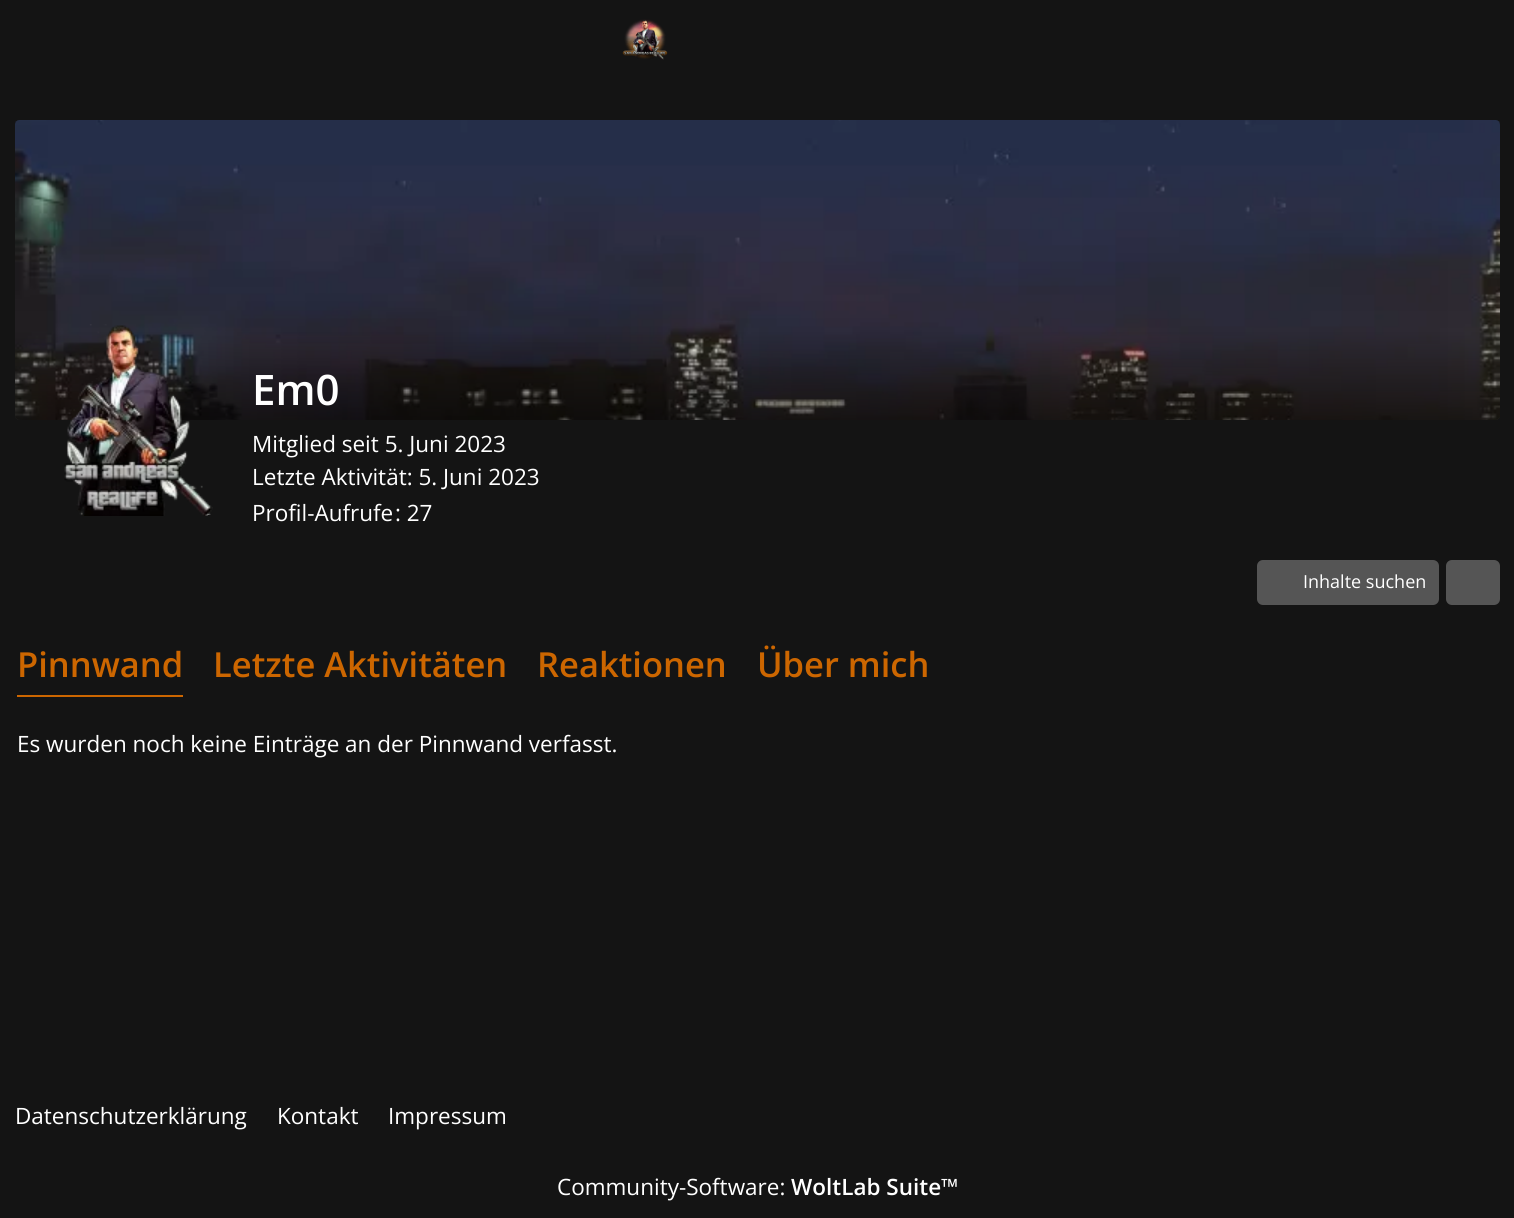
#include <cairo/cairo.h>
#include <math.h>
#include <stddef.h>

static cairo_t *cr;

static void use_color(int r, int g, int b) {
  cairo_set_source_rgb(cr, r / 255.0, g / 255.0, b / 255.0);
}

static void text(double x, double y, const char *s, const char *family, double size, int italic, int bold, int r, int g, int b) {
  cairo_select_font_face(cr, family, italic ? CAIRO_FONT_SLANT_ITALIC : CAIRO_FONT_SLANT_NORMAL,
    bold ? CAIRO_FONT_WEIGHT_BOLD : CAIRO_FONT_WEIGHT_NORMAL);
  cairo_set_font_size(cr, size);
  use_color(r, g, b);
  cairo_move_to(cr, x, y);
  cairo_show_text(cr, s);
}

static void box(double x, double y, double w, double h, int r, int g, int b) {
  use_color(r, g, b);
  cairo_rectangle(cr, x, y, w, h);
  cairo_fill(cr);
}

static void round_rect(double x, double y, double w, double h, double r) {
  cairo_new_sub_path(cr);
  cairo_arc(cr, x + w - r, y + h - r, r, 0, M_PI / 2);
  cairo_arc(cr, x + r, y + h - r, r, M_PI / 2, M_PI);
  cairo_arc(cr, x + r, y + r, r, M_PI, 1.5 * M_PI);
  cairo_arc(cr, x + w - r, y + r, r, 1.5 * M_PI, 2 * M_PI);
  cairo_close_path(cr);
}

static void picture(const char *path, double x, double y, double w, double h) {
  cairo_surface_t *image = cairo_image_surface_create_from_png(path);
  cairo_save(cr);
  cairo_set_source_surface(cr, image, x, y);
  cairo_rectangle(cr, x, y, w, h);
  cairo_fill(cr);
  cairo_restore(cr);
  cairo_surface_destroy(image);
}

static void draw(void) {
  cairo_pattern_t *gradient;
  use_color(20, 20, 20);
  cairo_paint(cr);
  picture("img_01.png", 622, 19, 46, 41);
  picture("img_02.png", 15, 120, 1485, 300);
  gradient = cairo_pattern_create_linear(758, 120, 758, 420);
  cairo_pattern_add_color_stop_rgba(gradient, 0.7, 0, 0, 0, 0);
  cairo_pattern_add_color_stop_rgba(gradient, 1, 0, 0, 0, 0.5);
  cairo_set_source(cr, gradient);
  cairo_pattern_destroy(gradient);
  cairo_new_path(cr);
  cairo_move_to(cr, 15, 120);
  cairo_line_to(cr, 1500, 120);
  cairo_line_to(cr, 1500, 415);
  cairo_curve_to(cr, 1500, 418, 1498, 420, 1495, 420);
  cairo_line_to(cr, 20, 420);
  cairo_curve_to(cr, 17, 420, 15, 418, 15, 415);
  cairo_close_path(cr);
  cairo_fill(cr);
  picture("img_03.png", 64, 324, 149, 192);
  use_color(85, 85, 85);
  round_rect(1257, 560, 182, 45, 6);
  cairo_fill(cr);
  round_rect(1446, 560, 54, 45, 6);
  cairo_fill(cr);
  box(17, 695, 166, 2, 204, 102, 0);
  text(252, 405, "Em0", "Open Sans SemiBold", 42, 0, 0, 255, 255, 255);
  text(252, 452, "Mitglied seit 5. Juni 2023", "Open Sans", 22.5, 0, 0, 255, 255, 255);
  text(252, 485, "Letzte Aktivität: 5. Juni 2023", "Open Sans", 22.5, 0, 0, 255, 255, 255);
  text(252, 521, "Profil-Aufrufe", "Open Sans", 22.5, 0, 0, 255, 255, 255);
  text(395, 521, ": 27", "Open Sans", 22.5, 0, 0, 255, 255, 255);
  text(1303, 588, "Inhalte suchen", "Open Sans", 18, 0, 0, 255, 255, 255);
  text(17, 677, "Pinnwand", "Open Sans SemiBold", 34.5, 0, 0, 204, 102, 0);
  text(213, 677, "Letzte Aktivitäten", "Open Sans SemiBold", 34.5, 0, 0, 204, 102, 0);
  text(537, 677, "Reaktionen", "Open Sans SemiBold", 34.5, 0, 0, 204, 102, 0);
  text(757, 677, "Über mich", "Open Sans SemiBold", 34.5, 0, 0, 204, 102, 0);
  text(17, 752, "Es wurden noch keine Einträge an der Pinnwand verfasst.", "Open Sans", 22.5, 0, 0, 255, 255, 255);
  text(15, 1124, "Datenschutzerklärung", "Open Sans", 22.5, 0, 0, 255, 255, 255);
  text(277, 1124, "Kontakt", "Open Sans", 22.5, 0, 0, 255, 255, 255);
  text(388, 1124, "Impressum", "Open Sans", 22.5, 0, 0, 255, 255, 255);
  text(557, 1195, "Community-Software:", "Open Sans", 22.5, 0, 0, 255, 255, 255);
  text(791, 1195, "WoltLab Suite™", "Open Sans SemiBold", 22.5, 0, 0, 255, 255, 255);
}

int main(void) {
  cairo_surface_t *surface = cairo_image_surface_create(CAIRO_FORMAT_RGB24, 1514, 1218);
  cr = cairo_create(surface);
  cairo_font_options_t *options = cairo_font_options_create();
  cairo_font_options_set_hint_metrics(options, CAIRO_HINT_METRICS_OFF);
  cairo_font_options_set_hint_style(options, CAIRO_HINT_STYLE_NONE);
  cairo_set_font_options(cr, options);
  cairo_set_miter_limit(cr, 4);
  draw();
  cairo_surface_write_to_png(surface, "out.png");
  cairo_font_options_destroy(options);
  cairo_destroy(cr);
  cairo_surface_destroy(surface);
  return 0;
}
